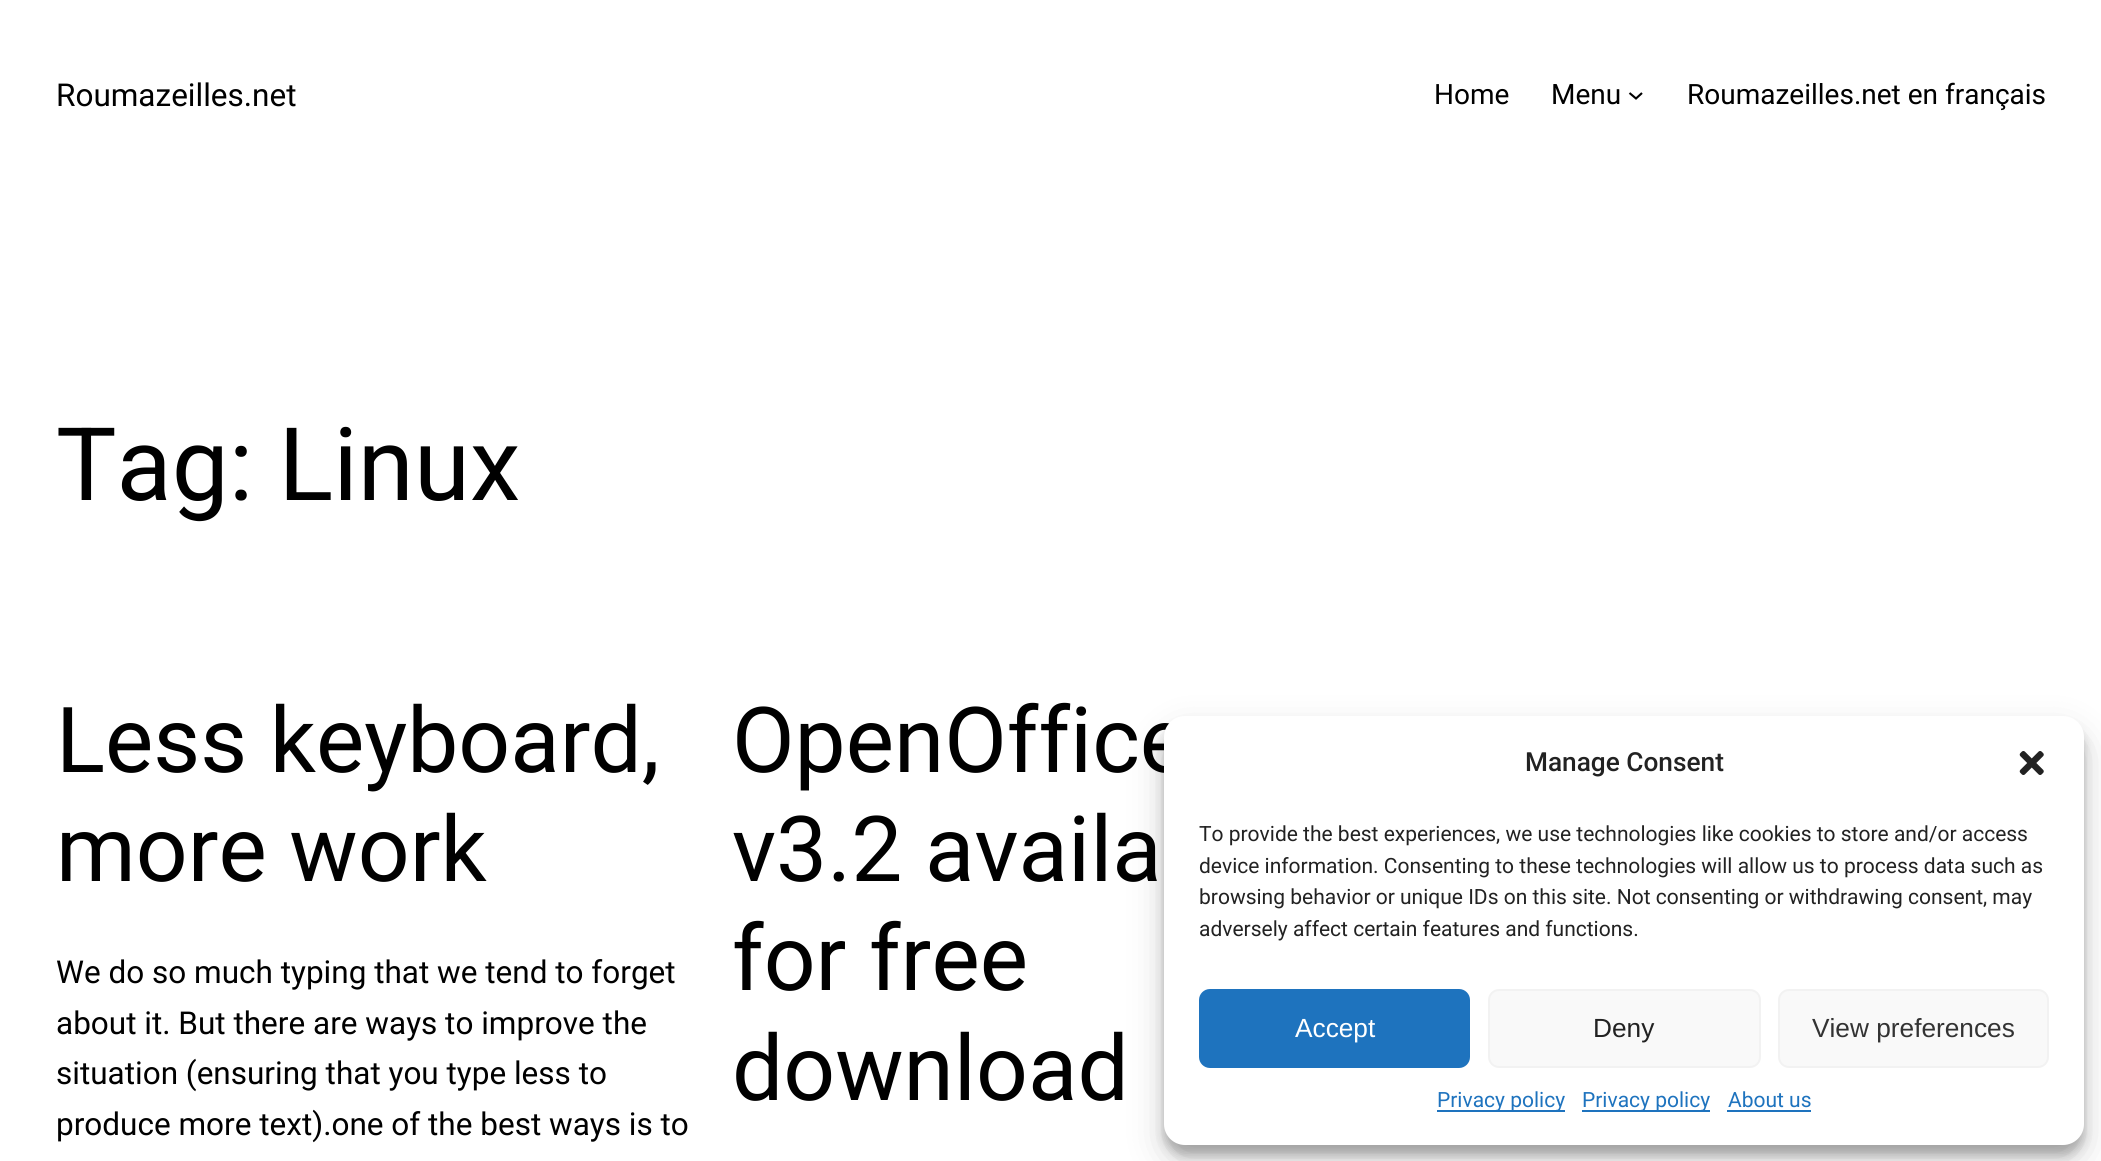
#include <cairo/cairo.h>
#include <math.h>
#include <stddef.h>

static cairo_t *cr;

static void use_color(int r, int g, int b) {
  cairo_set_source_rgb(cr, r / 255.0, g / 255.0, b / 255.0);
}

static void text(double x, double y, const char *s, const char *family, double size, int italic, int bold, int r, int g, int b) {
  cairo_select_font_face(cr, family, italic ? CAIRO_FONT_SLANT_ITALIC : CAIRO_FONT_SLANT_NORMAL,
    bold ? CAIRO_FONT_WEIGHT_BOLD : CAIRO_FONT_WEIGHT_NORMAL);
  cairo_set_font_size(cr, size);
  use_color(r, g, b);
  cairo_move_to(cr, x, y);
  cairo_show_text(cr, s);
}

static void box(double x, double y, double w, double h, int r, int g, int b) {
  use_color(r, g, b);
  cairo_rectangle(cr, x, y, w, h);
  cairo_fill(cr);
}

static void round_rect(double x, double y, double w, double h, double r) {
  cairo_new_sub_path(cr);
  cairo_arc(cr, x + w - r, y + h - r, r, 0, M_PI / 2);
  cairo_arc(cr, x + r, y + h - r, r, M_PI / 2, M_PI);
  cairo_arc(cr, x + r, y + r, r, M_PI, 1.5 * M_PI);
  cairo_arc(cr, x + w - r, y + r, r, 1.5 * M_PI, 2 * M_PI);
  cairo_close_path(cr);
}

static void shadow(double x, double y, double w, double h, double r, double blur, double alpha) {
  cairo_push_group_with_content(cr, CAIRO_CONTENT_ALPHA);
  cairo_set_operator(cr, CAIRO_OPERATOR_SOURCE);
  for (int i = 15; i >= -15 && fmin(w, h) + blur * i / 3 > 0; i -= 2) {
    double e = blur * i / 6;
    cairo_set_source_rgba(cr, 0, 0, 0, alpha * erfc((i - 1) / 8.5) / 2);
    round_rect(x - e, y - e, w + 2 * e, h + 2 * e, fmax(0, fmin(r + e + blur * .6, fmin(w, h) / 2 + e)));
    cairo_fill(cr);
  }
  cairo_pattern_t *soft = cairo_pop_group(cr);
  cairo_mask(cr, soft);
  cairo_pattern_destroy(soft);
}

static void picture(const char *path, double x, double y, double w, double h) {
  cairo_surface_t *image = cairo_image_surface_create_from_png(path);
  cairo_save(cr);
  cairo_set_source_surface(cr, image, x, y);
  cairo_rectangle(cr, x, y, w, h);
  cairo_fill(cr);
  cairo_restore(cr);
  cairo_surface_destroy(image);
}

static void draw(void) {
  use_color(255, 255, 255);
  cairo_paint(cr);
  cairo_new_path(cr);
  cairo_move_to(cr, 1629.5, 93);
  cairo_line_to(cr, 1636, 98.5);
  cairo_line_to(cr, 1642, 93);
  use_color(0, 0, 0);
  cairo_set_line_width(cr, 2.1);
  cairo_stroke(cr);
  use_color(0, 0, 0);
  shadow(1164, 726, 920, 429, 21, 5, 0.23);
  shadow(1164, 733, 920, 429, 21, 17.5, 0.19);
  text(56, 106, "Roumazeilles.net", "Roboto", 31.5, 0, 0, 0, 0, 0);
  text(1434, 104, "Home", "Roboto", 28, 0, 0, 0, 0, 0);
  text(1551, 104, "Menu", "Roboto", 28, 0, 0, 0, 0, 0);
  text(1687, 104, "Roumazeilles.net en français", "Roboto", 28, 0, 0, 0, 0, 0);
  text(56, 500, "Tag: Linux", "Roboto", 101.5, 0, 0, 0, 0, 0);
  text(56, 772, "Less keyboard,", "Roboto", 91, 0, 0, 0, 0, 0);
  text(56, 881, "more work", "Roboto", 91, 0, 0, 0, 0, 0);
  text(56, 983, "We do so much typing that we tend to forget", "Roboto", 31.5, 0, 0, 0, 0, 0);
  text(56, 1034, "about it. But there are ways to improve the", "Roboto", 31.5, 0, 0, 0, 0, 0);
  text(56, 1084, "situation (ensuring that you type less to", "Roboto", 31.5, 0, 0, 0, 0, 0);
  text(56, 1135, "produce more text).one of the best ways is to", "Roboto", 31.5, 0, 0, 0, 0, 0);
  text(732, 772, "OpenOffice", "Roboto", 91, 0, 0, 0, 0, 0);
  text(732, 881, "v3.2 availa", "Roboto", 91, 0, 0, 0, 0, 0);
  text(732, 990, "for free", "Roboto", 91, 0, 0, 0, 0, 0);
  text(732, 1100, "download", "Roboto", 91, 0, 0, 0, 0, 0);
  use_color(255, 255, 255);
  round_rect(1164, 716, 920, 429, 21);
  cairo_fill(cr);
  text(1525, 771, "Manage Consent", "Roboto Medium", 26.25, 0, 0, 34, 34, 34);
  picture("img_01.png", 2019, 751, 25, 24);
  text(1199, 841, "To provide the best experiences, we use technologies like cookies to store and/or access", "Roboto", 21, 0, 0, 34, 34, 34);
  text(1199, 873, "device information. Consenting to these technologies will allow us to process data such as", "Roboto", 21, 0, 0, 34, 34, 34);
  text(1199, 904, "browsing behavior or unique IDs on this site. Not consenting or withdrawing consent, may", "Roboto", 21, 0, 0, 34, 34, 34);
  text(1199, 936, "adversely affect certain features and functions.", "Roboto", 21, 0, 0, 34, 34, 34);
  use_color(30, 115, 190);
  round_rect(1200, 990, 269, 77, 10);
  cairo_fill_preserve(cr);
  cairo_set_line_width(cr, 2);
  cairo_stroke(cr);
  text(1295, 1037, "Accept", "Liberation Sans", 26.25, 0, 0, 255, 255, 255);
  use_color(249, 249, 249);
  round_rect(1489, 990, 271, 77, 10);
  cairo_fill_preserve(cr);
  use_color(242, 242, 242);
  cairo_stroke(cr);
  text(1593, 1037, "Deny", "Liberation Sans", 26.25, 0, 0, 34, 34, 34);
  use_color(249, 249, 249);
  round_rect(1779, 990, 269, 77, 10);
  cairo_fill_preserve(cr);
  use_color(242, 242, 242);
  cairo_stroke(cr);
  text(1812, 1037, "View preferences", "Liberation Sans", 26.25, 0, 0, 51, 51, 51);
  box(1437, 1110, 128, 2, 30, 115, 190);
  text(1437, 1107, "Privacy policy", "Roboto", 21, 0, 0, 30, 115, 190);
  box(1582, 1110, 128, 2, 30, 115, 190);
  text(1582, 1107, "Privacy policy", "Roboto", 21, 0, 0, 30, 115, 190);
  text(1728, 1107, "About us", "Roboto", 21, 0, 0, 30, 115, 190);
  box(1727, 1110, 84, 2, 30, 115, 190);
}

int main(void) {
  cairo_surface_t *surface = cairo_image_surface_create(CAIRO_FORMAT_RGB24, 2101, 1161);
  cr = cairo_create(surface);
  cairo_font_options_t *options = cairo_font_options_create();
  cairo_font_options_set_hint_metrics(options, CAIRO_HINT_METRICS_OFF);
  cairo_font_options_set_hint_style(options, CAIRO_HINT_STYLE_NONE);
  cairo_set_font_options(cr, options);
  cairo_set_miter_limit(cr, 4);
  draw();
  cairo_surface_write_to_png(surface, "out.png");
  cairo_font_options_destroy(options);
  cairo_destroy(cr);
  cairo_surface_destroy(surface);
  return 0;
}
